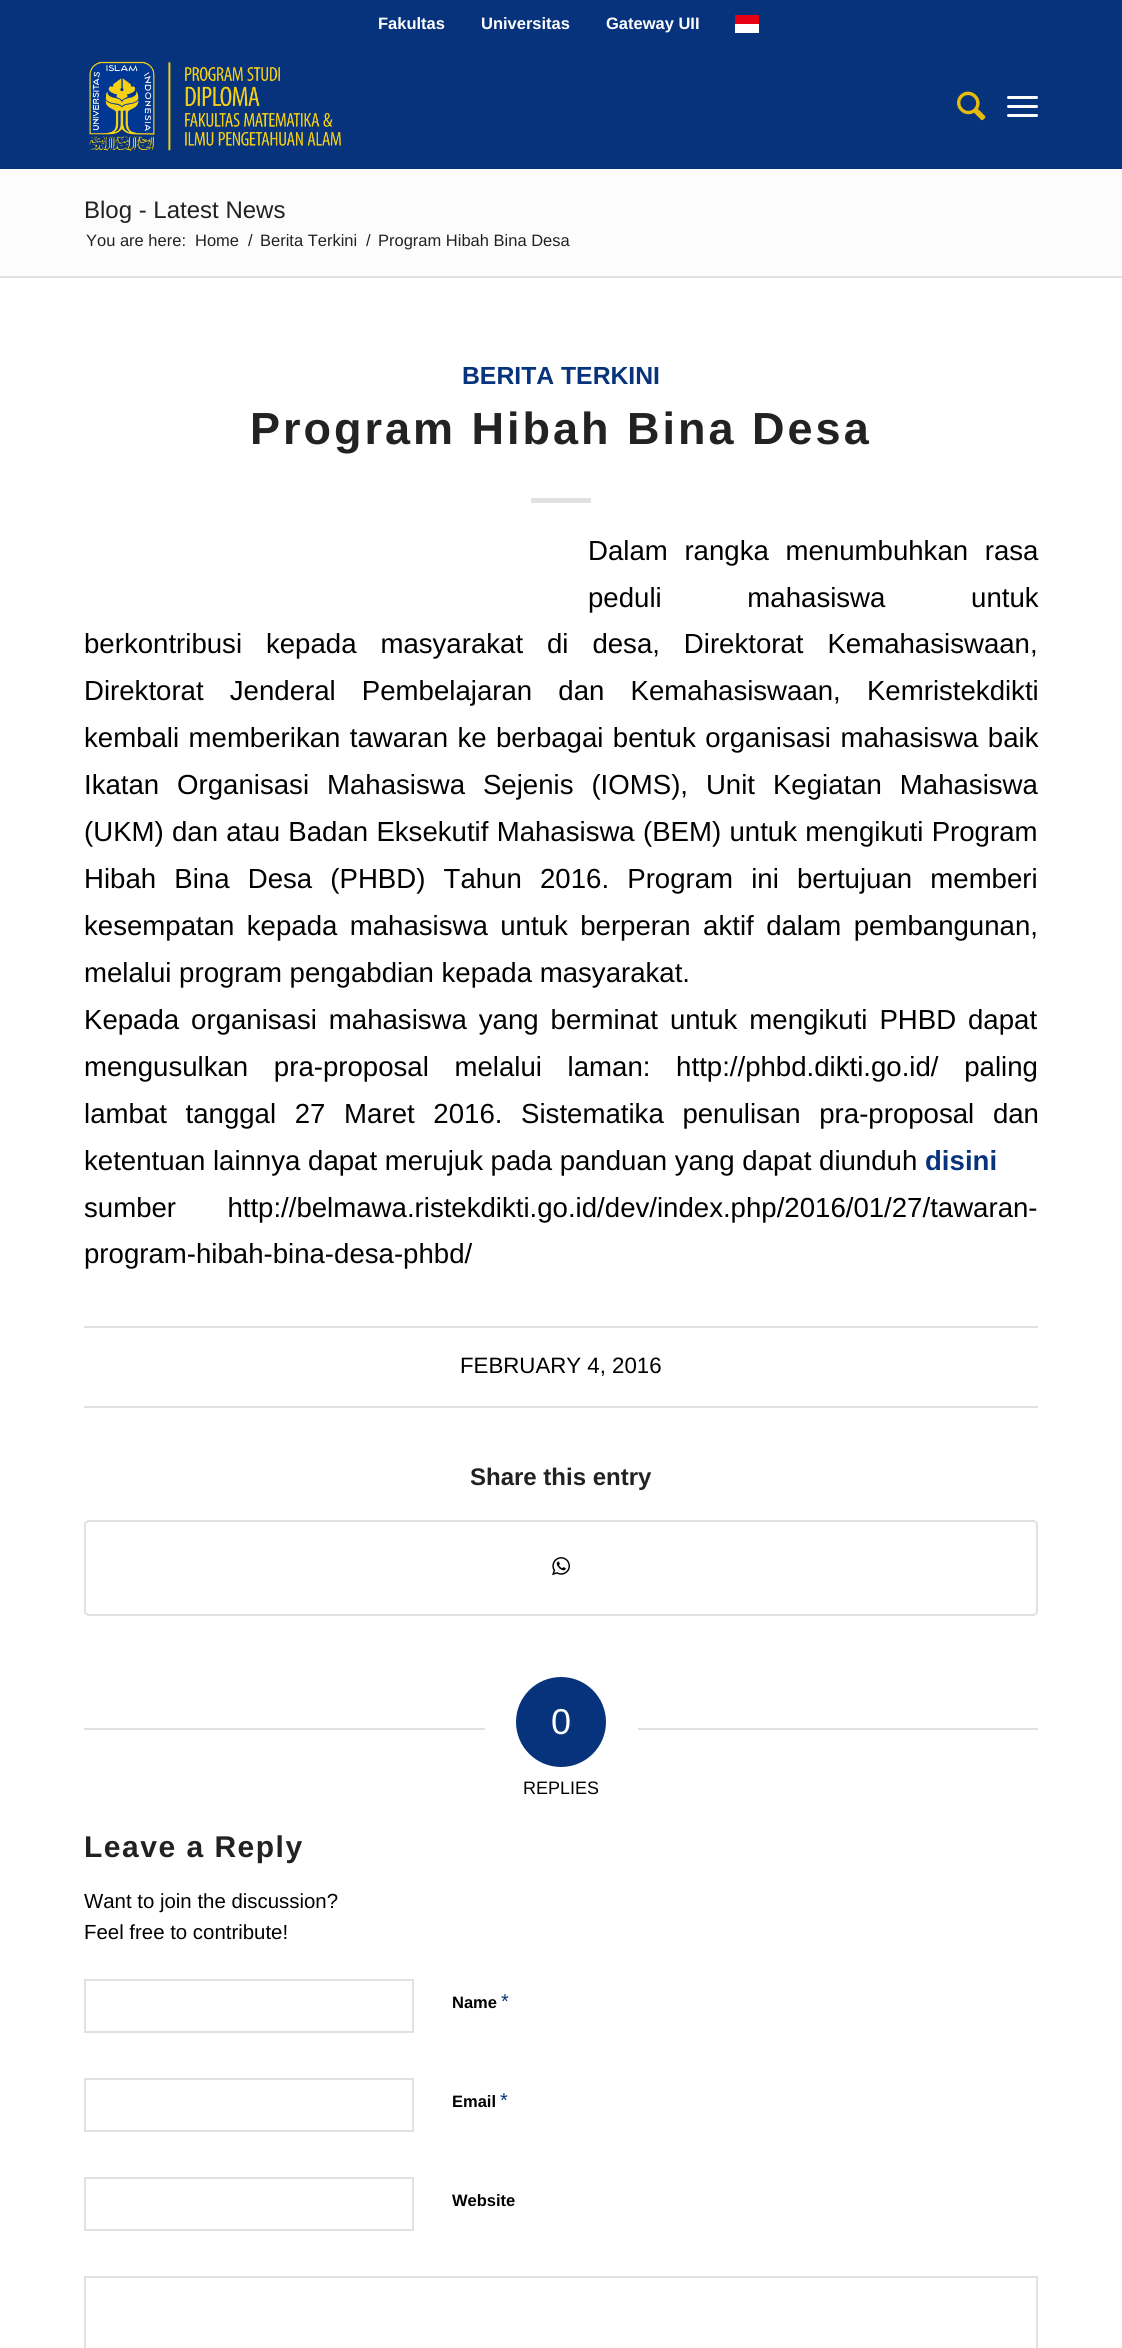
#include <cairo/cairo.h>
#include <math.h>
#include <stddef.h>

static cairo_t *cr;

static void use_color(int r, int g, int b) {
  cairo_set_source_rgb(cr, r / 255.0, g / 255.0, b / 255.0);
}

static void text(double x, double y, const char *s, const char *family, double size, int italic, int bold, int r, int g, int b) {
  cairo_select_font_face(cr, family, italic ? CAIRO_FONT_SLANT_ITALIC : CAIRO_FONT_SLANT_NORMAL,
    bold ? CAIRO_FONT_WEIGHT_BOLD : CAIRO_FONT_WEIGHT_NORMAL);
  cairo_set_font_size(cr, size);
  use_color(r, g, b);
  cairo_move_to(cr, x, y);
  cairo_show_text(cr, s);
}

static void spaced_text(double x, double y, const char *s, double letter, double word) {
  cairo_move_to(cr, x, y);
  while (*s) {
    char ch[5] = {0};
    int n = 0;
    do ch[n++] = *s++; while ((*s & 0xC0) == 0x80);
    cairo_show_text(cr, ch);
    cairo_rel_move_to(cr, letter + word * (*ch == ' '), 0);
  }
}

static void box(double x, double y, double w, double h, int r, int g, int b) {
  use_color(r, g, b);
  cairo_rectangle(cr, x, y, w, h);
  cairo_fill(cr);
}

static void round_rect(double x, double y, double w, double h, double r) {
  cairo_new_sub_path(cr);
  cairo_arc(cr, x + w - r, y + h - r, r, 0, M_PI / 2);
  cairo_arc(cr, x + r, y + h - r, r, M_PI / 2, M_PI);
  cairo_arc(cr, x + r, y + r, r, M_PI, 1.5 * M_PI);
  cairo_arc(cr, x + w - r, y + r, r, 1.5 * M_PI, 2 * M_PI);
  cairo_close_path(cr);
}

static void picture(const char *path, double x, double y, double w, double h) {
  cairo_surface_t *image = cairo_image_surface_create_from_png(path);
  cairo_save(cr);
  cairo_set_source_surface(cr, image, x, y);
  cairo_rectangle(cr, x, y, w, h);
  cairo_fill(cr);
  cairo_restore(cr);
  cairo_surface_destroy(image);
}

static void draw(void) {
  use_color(252, 252, 252);
  cairo_paint(cr);
  box(0, 0, 1122, 169, 6, 51, 123);
  box(735, 15, 24, 9, 231, 0, 17);
  box(735, 24, 24, 9, 255, 255, 255);
  picture("img_01.png", 89, 61, 252, 90);
  picture("img_02.png", 957, 91, 29, 30);
  round_rect(1007, 105, 31, 3, 1.5);
  cairo_fill(cr);
  round_rect(1007, 96, 31, 3, 1.5);
  cairo_fill(cr);
  round_rect(1007, 114, 31, 3, 1.5);
  cairo_fill(cr);
  box(0, 278, 1122, 2070, 255, 255, 255);
  box(0, 276, 1122, 2, 225, 225, 225);
  box(531, 498, 60, 5, 225, 225, 225);
  box(84, 1326, 954, 2, 225, 225, 225);
  box(84, 1406, 954, 2, 225, 225, 225);
  round_rect(85, 1521, 952, 94, 4);
  cairo_stroke(cr);
  picture("img_03.png", 552, 1557, 18, 19);
  box(84, 1728, 401, 2, 225, 225, 225);
  use_color(6, 51, 123);
  cairo_arc(cr, 561, 1722, 45, 0, 2 * M_PI);
  cairo_fill(cr);
  box(638, 1728, 400, 2, 225, 225, 225);
  cairo_rectangle(cr, 85, 1980, 328, 52);
  cairo_stroke(cr);
  cairo_rectangle(cr, 85, 2079, 328, 52);
  cairo_stroke(cr);
  cairo_rectangle(cr, 85, 2178, 328, 52);
  cairo_stroke(cr);
  cairo_rectangle(cr, 85, 2277, 952, 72);
  cairo_stroke(cr);
  text(378, 29, "Fakultas", "Liberation Sans", 16.5, 0, 1, 255, 255, 255);
  text(481, 29, "Universitas", "Liberation Sans", 16.5, 0, 1, 255, 255, 255);
  text(606, 29, "Gateway UII", "Liberation Sans", 16.5, 0, 1, 255, 255, 255);
  text(84, 218, "Blog - Latest News", "Liberation Sans", 24, 0, 0, 34, 34, 34);
  text(86, 246, "You are here:", "Liberation Sans", 16.5, 0, 0, 34, 34, 34);
  text(195, 246, "Home", "Liberation Sans", 16.5, 0, 0, 34, 34, 34);
  text(248, 246, "/", "Liberation Sans", 16.5, 0, 0, 34, 34, 34);
  text(260, 246, "Berita Terkini", "Liberation Sans", 16.5, 0, 0, 34, 34, 34);
  text(366, 246, "/", "Liberation Sans", 16.5, 0, 0, 34, 34, 34);
  text(378, 246, "Program Hibah Bina Desa", "Liberation Sans", 16.5, 0, 0, 34, 34, 34);
  text(462, 384, "BERITA TERKINI", "Liberation Sans", 24.75, 0, 1, 6, 51, 123);
  cairo_set_font_size(cr, 45);
  use_color(34, 34, 34);
  spaced_text(250, 444, "Program Hibah Bina Desa", 3, 0);
  cairo_select_font_face(cr, "Liberation Sans", CAIRO_FONT_SLANT_NORMAL, CAIRO_FONT_WEIGHT_NORMAL);
  cairo_set_font_size(cr, 27.6);
  use_color(0, 0, 0);
  spaced_text(588, 560, "Dalam rangka menumbuhkan rasa", 0, 9);
  spaced_text(588, 607, "peduli mahasiswa untuk", 0, 78);
  spaced_text(84, 653, "berkontribusi kepada masyarakat di desa, Direktorat Kemahasiswaan,", 0, 16.25);
  spaced_text(84, 700, "Direktorat Jenderal Pembelajaran dan Kemahasiswaan, Kemristekdikti", 0, 18.5);
  spaced_text(84, 747, "kembali memberikan tawaran ke berbagai bentuk organisasi mahasiswa baik", 0, 1.75);
  spaced_text(84, 794, "Ikatan Organisasi Mahasiswa Sejenis (IOMS), Unit Kegiatan Mahasiswa", 0, 10.25);
  spaced_text(84, 841, "(UKM) dan atau Badan Eksekutif Mahasiswa (BEM) untuk mengikuti Program", 0, 0.6);
  spaced_text(84, 888, "Hibah Bina Desa (PHBD) Tahun 2016. Program ini bertujuan memberi", 0, 10.5);
  spaced_text(84, 935, "kesempatan kepada mahasiswa untuk berperan aktif dalam pembangunan,", 0, 4.75);
  text(84, 982, "melalui program pengabdian kepada masyarakat.", "Liberation Sans", 27.6, 0, 0, 0, 0, 0);
  spaced_text(84, 1029, "Kepada organisasi mahasiswa yang berminat untuk mengikuti PHBD dapat", 0, 4.25);
  spaced_text(84, 1076, "mengusulkan pra-proposal melalui laman: http://phbd.dikti.go.id/ paling", 0, 18);
  spaced_text(84, 1123, "lambat tanggal 27 Maret 2016. Sistematika penulisan pra-proposal dan", 0, 11);
  text(84, 1170, "ketentuan lainnya dapat merujuk pada panduan yang dapat diunduh", "Liberation Sans", 27.6, 0, 0, 0, 0, 0);
  text(925, 1170, "disini", "Liberation Sans", 27.6, 0, 1, 6, 51, 123);
  cairo_select_font_face(cr, "Liberation Sans", CAIRO_FONT_SLANT_NORMAL, CAIRO_FONT_WEIGHT_NORMAL);
  use_color(0, 0, 0);
  spaced_text(84, 1217, "sumber  http://belmawa.ristekdikti.go.id/dev/index.php/2016/01/27/tawaran-", 0, 18);
  text(84, 1263, "program-hibah-bina-desa-phbd/", "Liberation Sans", 27.6, 0, 0, 0, 0, 0);
  text(460, 1373, "FEBRUARY 4, 2016", "Liberation Sans", 22.25, 0, 0, 0, 0, 0);
  text(470, 1485, "Share this entry", "Liberation Sans", 24, 0, 1, 34, 34, 34);
  text(551, 1734, "0", "Liberation Sans", 36, 0, 0, 255, 255, 255);
  text(523, 1794, "REPLIES", "Liberation Sans", 18, 0, 0, 0, 0, 0);
  cairo_select_font_face(cr, "Liberation Sans", CAIRO_FONT_SLANT_NORMAL, CAIRO_FONT_WEIGHT_BOLD);
  cairo_set_font_size(cr, 30);
  use_color(34, 34, 34);
  spaced_text(84, 1857, "Leave a Reply", 1.5, 0);
  text(84, 1908, "Want to join the discussion?", "Liberation Sans", 20.4, 0, 0, 0, 0, 0);
  text(84, 1939, "Feel free to contribute!", "Liberation Sans", 20.4, 0, 0, 0, 0, 0);
  text(452, 2008, "Name", "Liberation Sans", 16.5, 0, 1, 0, 0, 0);
  text(501, 2008, "*", "Liberation Sans", 20, 0, 0, 6, 51, 123);
  text(452, 2107, "Email", "Liberation Sans", 16.5, 0, 1, 0, 0, 0);
  text(500, 2107, "*", "Liberation Sans", 20, 0, 0, 6, 51, 123);
  text(452, 2206, "Website", "Liberation Sans", 16.5, 0, 1, 0, 0, 0);
}

int main(void) {
  cairo_surface_t *surface = cairo_image_surface_create(CAIRO_FORMAT_RGB24, 1122, 2348);
  cr = cairo_create(surface);
  cairo_font_options_t *options = cairo_font_options_create();
  cairo_font_options_set_hint_metrics(options, CAIRO_HINT_METRICS_OFF);
  cairo_font_options_set_hint_style(options, CAIRO_HINT_STYLE_NONE);
  cairo_set_font_options(cr, options);
  cairo_set_miter_limit(cr, 4);
  draw();
  cairo_surface_write_to_png(surface, "out.png");
  cairo_font_options_destroy(options);
  cairo_destroy(cr);
  cairo_surface_destroy(surface);
  return 0;
}
